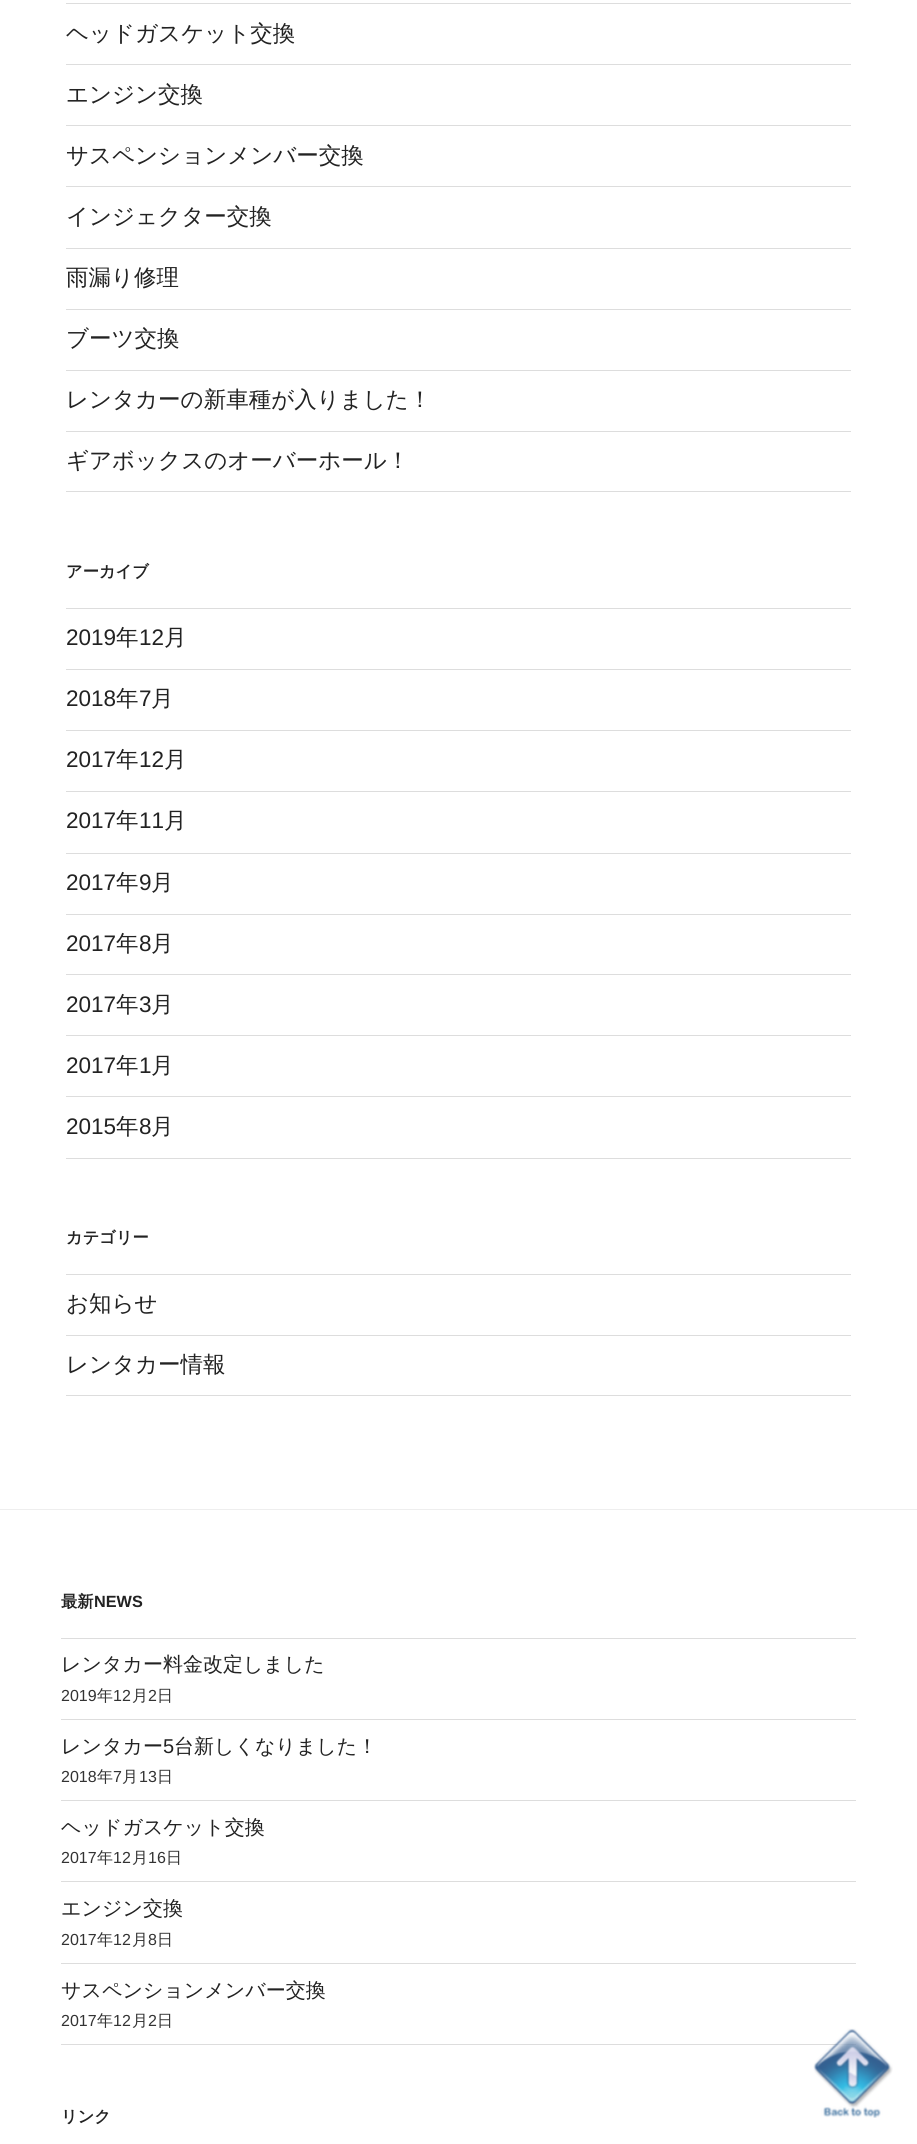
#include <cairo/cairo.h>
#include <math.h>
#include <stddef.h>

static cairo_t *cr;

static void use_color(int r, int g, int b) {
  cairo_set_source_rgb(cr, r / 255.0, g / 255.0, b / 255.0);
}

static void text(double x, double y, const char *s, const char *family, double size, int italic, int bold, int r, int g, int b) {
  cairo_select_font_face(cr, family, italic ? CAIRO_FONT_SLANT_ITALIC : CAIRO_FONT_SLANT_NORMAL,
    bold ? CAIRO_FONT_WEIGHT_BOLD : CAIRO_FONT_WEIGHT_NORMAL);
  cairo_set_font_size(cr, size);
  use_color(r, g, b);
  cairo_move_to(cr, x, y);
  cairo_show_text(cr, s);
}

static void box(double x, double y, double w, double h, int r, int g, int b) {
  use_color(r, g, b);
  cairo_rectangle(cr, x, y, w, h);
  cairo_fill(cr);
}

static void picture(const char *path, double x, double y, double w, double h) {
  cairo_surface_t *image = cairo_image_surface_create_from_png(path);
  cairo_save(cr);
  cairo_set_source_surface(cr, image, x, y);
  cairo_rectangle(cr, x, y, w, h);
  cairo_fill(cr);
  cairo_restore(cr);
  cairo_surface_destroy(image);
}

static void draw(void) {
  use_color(255, 255, 255);
  cairo_paint(cr);
  box(66, 3, 785, 1, 221, 221, 221);
  box(66, 64, 785, 1, 221, 221, 221);
  box(66, 125, 785, 1, 221, 221, 221);
  box(66, 186, 785, 1, 221, 221, 221);
  box(66, 248, 785, 1, 221, 221, 221);
  box(66, 309, 785, 1, 221, 221, 221);
  box(66, 370, 785, 1, 221, 221, 221);
  box(66, 431, 785, 1, 221, 221, 221);
  box(66, 491, 785, 1, 221, 221, 221);
  box(66, 608, 785, 1, 221, 221, 221);
  box(66, 669, 785, 1, 221, 221, 221);
  box(66, 730, 785, 1, 221, 221, 221);
  box(66, 791, 785, 1, 221, 221, 221);
  box(66, 853, 785, 1, 221, 221, 221);
  box(66, 914, 785, 1, 221, 221, 221);
  box(66, 974, 785, 1, 221, 221, 221);
  box(66, 1035, 785, 1, 221, 221, 221);
  box(66, 1096, 785, 1, 221, 221, 221);
  box(66, 1158, 785, 1, 221, 221, 221);
  box(66, 1274, 785, 1, 221, 221, 221);
  box(66, 1335, 785, 1, 221, 221, 221);
  box(66, 1395, 785, 1, 221, 221, 221);
  box(0, 1509, 917, 1, 238, 238, 238);
  box(61, 1638, 795, 1, 221, 221, 221);
  box(61, 1719, 795, 1, 221, 221, 221);
  box(61, 1800, 795, 1, 221, 221, 221);
  box(61, 1881, 795, 1, 221, 221, 221);
  box(61, 1963, 795, 1, 221, 221, 221);
  box(61, 2044, 795, 1, 221, 221, 221);
  picture("img_01.png", 813, 2028, 80, 90);
  text(66, 41, "ヘッドガスケット交換", "WenQuanYi Zen Hei Medium", 22.5, 0, 0, 34, 34, 34);
  text(66, 102, "エンジン交換", "WenQuanYi Zen Hei Medium", 22.5, 0, 0, 34, 34, 34);
  text(66, 163, "サスペンションメンバー交換", "WenQuanYi Zen Hei Medium", 22.5, 0, 0, 34, 34, 34);
  text(66, 224, "インジェクター交換", "WenQuanYi Zen Hei Medium", 22.5, 0, 0, 34, 34, 34);
  text(66, 285, "雨漏り修理", "WenQuanYi Zen Hei Medium", 22.5, 0, 0, 34, 34, 34);
  text(66, 346, "ブーツ交換", "WenQuanYi Zen Hei Medium", 22.5, 0, 0, 34, 34, 34);
  text(66, 407, "レンタカーの新車種が入りました！", "WenQuanYi Zen Hei Medium", 22.5, 0, 0, 34, 34, 34);
  text(66, 468, "ギアボックスのオーバーホール！", "WenQuanYi Zen Hei Medium", 22.5, 0, 0, 34, 34, 34);
  text(66, 577, "アーカイブ", "WenQuanYi Zen Hei", 16.25, 0, 1, 34, 34, 34);
  text(66, 645, "2019", "Liberation Sans", 22.5, 0, 0, 34, 34, 34);
  text(116, 645, "年", "WenQuanYi Zen Hei Medium", 22.5, 0, 0, 34, 34, 34);
  text(139, 645, "12", "Liberation Sans", 22.5, 0, 0, 34, 34, 34);
  text(164, 645, "月", "WenQuanYi Zen Hei Medium", 22.5, 0, 0, 34, 34, 34);
  text(66, 706, "2018", "Liberation Sans", 22.5, 0, 0, 34, 34, 34);
  text(116, 706, "年", "WenQuanYi Zen Hei Medium", 22.5, 0, 0, 34, 34, 34);
  text(139, 706, "7", "Liberation Sans", 22.5, 0, 0, 34, 34, 34);
  text(151, 706, "月", "WenQuanYi Zen Hei Medium", 22.5, 0, 0, 34, 34, 34);
  text(66, 767, "2017", "Liberation Sans", 22.5, 0, 0, 34, 34, 34);
  text(116, 767, "年", "WenQuanYi Zen Hei Medium", 22.5, 0, 0, 34, 34, 34);
  text(139, 767, "12", "Liberation Sans", 22.5, 0, 0, 34, 34, 34);
  text(164, 767, "月", "WenQuanYi Zen Hei Medium", 22.5, 0, 0, 34, 34, 34);
  text(66, 828, "2017", "Liberation Sans", 22.5, 0, 0, 34, 34, 34);
  text(116, 828, "年", "WenQuanYi Zen Hei Medium", 22.5, 0, 0, 34, 34, 34);
  text(139, 828, "11", "Liberation Sans", 22.5, 0, 0, 34, 34, 34);
  text(164, 828, "月", "WenQuanYi Zen Hei Medium", 22.5, 0, 0, 34, 34, 34);
  text(66, 890, "2017", "Liberation Sans", 22.5, 0, 0, 34, 34, 34);
  text(116, 890, "年", "WenQuanYi Zen Hei Medium", 22.5, 0, 0, 34, 34, 34);
  text(139, 890, "9", "Liberation Sans", 22.5, 0, 0, 34, 34, 34);
  text(151, 890, "月", "WenQuanYi Zen Hei Medium", 22.5, 0, 0, 34, 34, 34);
  text(66, 951, "2017", "Liberation Sans", 22.5, 0, 0, 34, 34, 34);
  text(116, 951, "年", "WenQuanYi Zen Hei Medium", 22.5, 0, 0, 34, 34, 34);
  text(139, 951, "8", "Liberation Sans", 22.5, 0, 0, 34, 34, 34);
  text(151, 951, "月", "WenQuanYi Zen Hei Medium", 22.5, 0, 0, 34, 34, 34);
  text(66, 1012, "2017", "Liberation Sans", 22.5, 0, 0, 34, 34, 34);
  text(116, 1012, "年", "WenQuanYi Zen Hei Medium", 22.5, 0, 0, 34, 34, 34);
  text(139, 1012, "3", "Liberation Sans", 22.5, 0, 0, 34, 34, 34);
  text(151, 1012, "月", "WenQuanYi Zen Hei Medium", 22.5, 0, 0, 34, 34, 34);
  text(66, 1073, "2017", "Liberation Sans", 22.5, 0, 0, 34, 34, 34);
  text(116, 1073, "年", "WenQuanYi Zen Hei Medium", 22.5, 0, 0, 34, 34, 34);
  text(139, 1073, "1", "Liberation Sans", 22.5, 0, 0, 34, 34, 34);
  text(151, 1073, "月", "WenQuanYi Zen Hei Medium", 22.5, 0, 0, 34, 34, 34);
  text(66, 1134, "2015", "Liberation Sans", 22.5, 0, 0, 34, 34, 34);
  text(116, 1134, "年", "WenQuanYi Zen Hei Medium", 22.5, 0, 0, 34, 34, 34);
  text(139, 1134, "8", "Liberation Sans", 22.5, 0, 0, 34, 34, 34);
  text(151, 1134, "月", "WenQuanYi Zen Hei Medium", 22.5, 0, 0, 34, 34, 34);
  text(66, 1243, "カテゴリー", "WenQuanYi Zen Hei", 16.25, 0, 1, 34, 34, 34);
  text(66, 1311, "お知らせ", "WenQuanYi Zen Hei Medium", 22.5, 0, 0, 34, 34, 34);
  text(66, 1372, "レンタカー情報", "WenQuanYi Zen Hei Medium", 22.5, 0, 0, 34, 34, 34);
  text(61, 1607, "最新", "WenQuanYi Zen Hei", 16.25, 0, 1, 34, 34, 34);
  text(94, 1607, "NEWS", "Liberation Sans", 16.25, 0, 1, 34, 34, 34);
  text(61, 1671, "レンタカー料金改定しました", "WenQuanYi Zen Hei Medium", 20, 0, 0, 34, 34, 34);
  text(61, 1701, "2019", "Liberation Sans", 16, 0, 0, 51, 51, 51);
  text(97, 1701, "年", "WenQuanYi Zen Hei Medium", 16, 0, 0, 51, 51, 51);
  text(113, 1701, "12", "Liberation Sans", 16, 0, 0, 51, 51, 51);
  text(132, 1701, "月", "WenQuanYi Zen Hei Medium", 16, 0, 0, 51, 51, 51);
  text(148, 1701, "2", "Liberation Sans", 16, 0, 0, 51, 51, 51);
  text(157, 1701, "日", "WenQuanYi Zen Hei Medium", 16, 0, 0, 51, 51, 51);
  text(61, 1753, "レンタカー", "WenQuanYi Zen Hei Medium", 20, 0, 0, 34, 34, 34);
  text(163, 1753, "5", "Liberation Sans", 20, 0, 0, 34, 34, 34);
  text(174, 1753, "台新しくなりました！", "WenQuanYi Zen Hei Medium", 20, 0, 0, 34, 34, 34);
  text(61, 1782, "2018", "Liberation Sans", 16, 0, 0, 51, 51, 51);
  text(97, 1782, "年", "WenQuanYi Zen Hei Medium", 16, 0, 0, 51, 51, 51);
  text(113, 1782, "7", "Liberation Sans", 16, 0, 0, 51, 51, 51);
  text(122, 1782, "月", "WenQuanYi Zen Hei Medium", 16, 0, 0, 51, 51, 51);
  text(139, 1782, "13", "Liberation Sans", 16, 0, 0, 51, 51, 51);
  text(157, 1782, "日", "WenQuanYi Zen Hei Medium", 16, 0, 0, 51, 51, 51);
  text(61, 1834, "ヘッドガスケット交換", "WenQuanYi Zen Hei Medium", 20, 0, 0, 34, 34, 34);
  text(61, 1863, "2017", "Liberation Sans", 16, 0, 0, 51, 51, 51);
  text(97, 1863, "年", "WenQuanYi Zen Hei Medium", 16, 0, 0, 51, 51, 51);
  text(113, 1863, "12", "Liberation Sans", 16, 0, 0, 51, 51, 51);
  text(132, 1863, "月", "WenQuanYi Zen Hei Medium", 16, 0, 0, 51, 51, 51);
  text(148, 1863, "16", "Liberation Sans", 16, 0, 0, 51, 51, 51);
  text(166, 1863, "日", "WenQuanYi Zen Hei Medium", 16, 0, 0, 51, 51, 51);
  text(61, 1915, "エンジン交換", "WenQuanYi Zen Hei Medium", 20, 0, 0, 34, 34, 34);
  text(61, 1945, "2017", "Liberation Sans", 16, 0, 0, 51, 51, 51);
  text(97, 1945, "年", "WenQuanYi Zen Hei Medium", 16, 0, 0, 51, 51, 51);
  text(113, 1945, "12", "Liberation Sans", 16, 0, 0, 51, 51, 51);
  text(132, 1945, "月", "WenQuanYi Zen Hei Medium", 16, 0, 0, 51, 51, 51);
  text(148, 1945, "8", "Liberation Sans", 16, 0, 0, 51, 51, 51);
  text(157, 1945, "日", "WenQuanYi Zen Hei Medium", 16, 0, 0, 51, 51, 51);
  text(61, 1997, "サスペンションメンバー交換", "WenQuanYi Zen Hei Medium", 20, 0, 0, 34, 34, 34);
  text(61, 2026, "2017", "Liberation Sans", 16, 0, 0, 51, 51, 51);
  text(97, 2026, "年", "WenQuanYi Zen Hei Medium", 16, 0, 0, 51, 51, 51);
  text(113, 2026, "12", "Liberation Sans", 16, 0, 0, 51, 51, 51);
  text(132, 2026, "月", "WenQuanYi Zen Hei Medium", 16, 0, 0, 51, 51, 51);
  text(148, 2026, "2", "Liberation Sans", 16, 0, 0, 51, 51, 51);
  text(157, 2026, "日", "WenQuanYi Zen Hei Medium", 16, 0, 0, 51, 51, 51);
  text(61, 2122, "リンク", "WenQuanYi Zen Hei", 16.25, 0, 1, 34, 34, 34);
}

int main(void) {
  cairo_surface_t *surface = cairo_image_surface_create(CAIRO_FORMAT_RGB24, 917, 2144);
  cr = cairo_create(surface);
  cairo_font_options_t *options = cairo_font_options_create();
  cairo_font_options_set_hint_metrics(options, CAIRO_HINT_METRICS_OFF);
  cairo_font_options_set_hint_style(options, CAIRO_HINT_STYLE_NONE);
  cairo_set_font_options(cr, options);
  cairo_set_miter_limit(cr, 4);
  draw();
  cairo_surface_write_to_png(surface, "out.png");
  cairo_font_options_destroy(options);
  cairo_destroy(cr);
  cairo_surface_destroy(surface);
  return 0;
}
